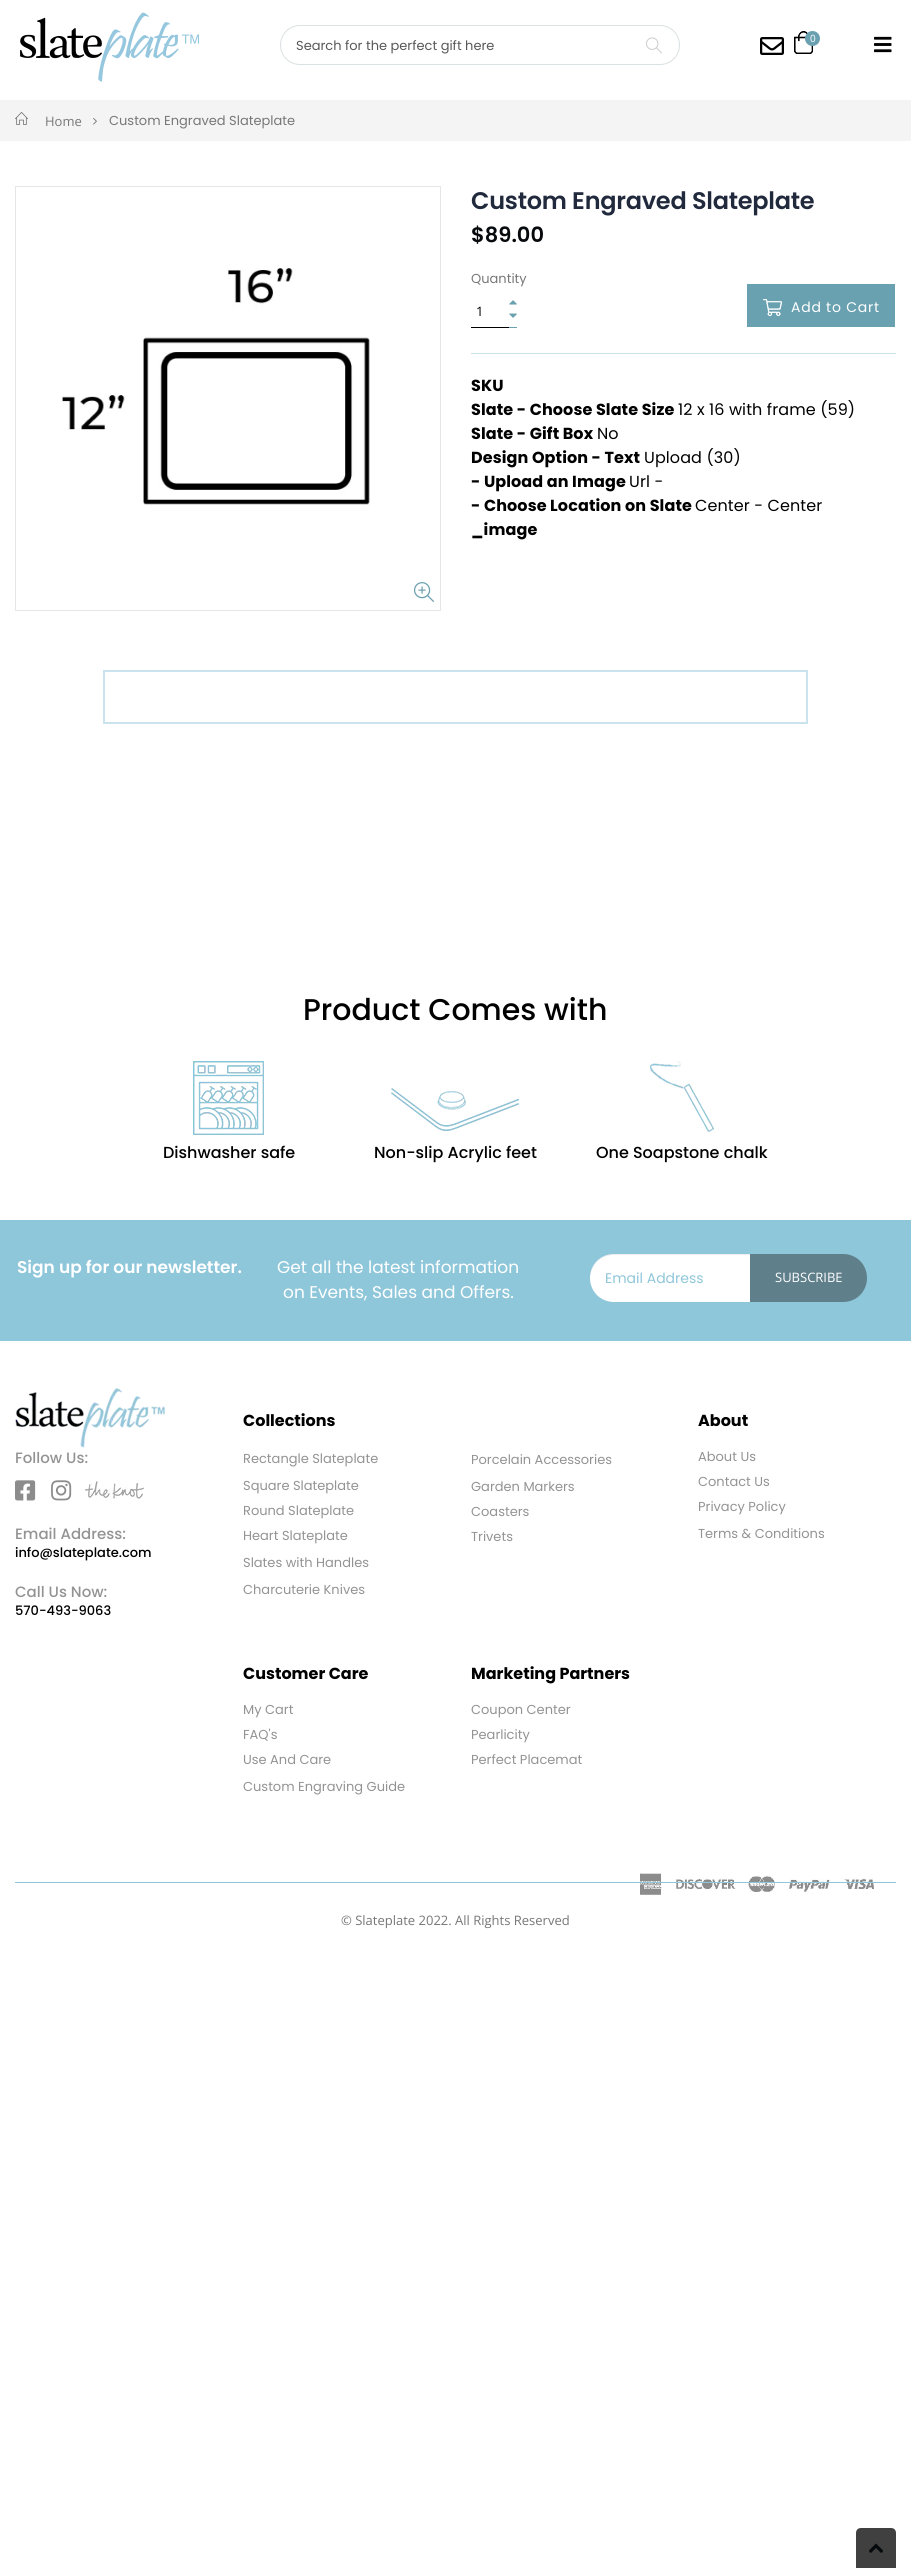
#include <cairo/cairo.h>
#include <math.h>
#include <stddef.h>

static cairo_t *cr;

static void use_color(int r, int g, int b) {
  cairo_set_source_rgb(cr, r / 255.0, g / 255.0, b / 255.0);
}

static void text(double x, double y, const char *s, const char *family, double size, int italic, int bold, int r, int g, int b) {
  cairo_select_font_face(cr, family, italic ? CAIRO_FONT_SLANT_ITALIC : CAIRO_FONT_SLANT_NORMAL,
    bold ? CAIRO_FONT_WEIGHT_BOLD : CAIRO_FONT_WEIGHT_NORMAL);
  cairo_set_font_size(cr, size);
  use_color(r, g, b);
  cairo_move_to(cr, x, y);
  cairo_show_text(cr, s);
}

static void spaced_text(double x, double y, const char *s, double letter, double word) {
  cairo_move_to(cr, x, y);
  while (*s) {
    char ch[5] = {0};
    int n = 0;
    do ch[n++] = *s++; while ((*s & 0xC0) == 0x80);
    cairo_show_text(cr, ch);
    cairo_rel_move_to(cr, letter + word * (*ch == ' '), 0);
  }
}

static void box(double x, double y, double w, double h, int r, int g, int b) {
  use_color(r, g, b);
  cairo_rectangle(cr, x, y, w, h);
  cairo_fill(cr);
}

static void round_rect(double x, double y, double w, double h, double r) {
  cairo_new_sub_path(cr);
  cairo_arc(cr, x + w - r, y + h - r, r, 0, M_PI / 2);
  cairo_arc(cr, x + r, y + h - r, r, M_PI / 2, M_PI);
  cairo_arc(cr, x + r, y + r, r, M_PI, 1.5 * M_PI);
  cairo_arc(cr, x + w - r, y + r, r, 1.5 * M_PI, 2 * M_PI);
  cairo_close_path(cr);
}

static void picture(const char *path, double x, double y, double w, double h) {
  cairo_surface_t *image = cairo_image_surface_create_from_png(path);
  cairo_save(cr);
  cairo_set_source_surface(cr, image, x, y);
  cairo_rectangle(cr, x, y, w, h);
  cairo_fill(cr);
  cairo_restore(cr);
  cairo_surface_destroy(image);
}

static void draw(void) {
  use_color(255, 255, 255);
  cairo_paint(cr);
  picture("img_01.png", 20, 12, 180, 70);
  round_rect(280.5, 25.5, 399, 39, 19.5);
  use_color(219, 224, 226);
  cairo_set_line_width(cr, 1);
  cairo_stroke(cr);
  picture("img_02.png", 646, 37, 16, 17);
  picture("img_03.png", 760, 37, 24, 18);
  picture("img_04.png", 794, 31, 19, 23);
  use_color(106, 161, 177);
  cairo_arc(cr, 812.5, 38.5, 7.5, 0, 2 * M_PI);
  cairo_fill(cr);
  picture("img_05.png", 874, 36, 18, 17);
  box(0, 100, 911, 41, 244, 244, 244);
  picture("img_06.png", 15, 112, 13, 13);
  picture("img_07.png", 93, 118, 4, 7);
  cairo_rectangle(cr, 15.5, 186.5, 425, 424);
  use_color(230, 230, 230);
  cairo_stroke(cr);
  picture("img_08.png", 61, 268, 309, 237);
  picture("img_09.png", 414, 582, 20, 20);
  box(471, 353, 425, 1, 202, 227, 239);
  box(471, 327, 38, 1, 0, 0, 0);
  box(509, 327, 8, 1, 107, 160, 174);
  picture("img_10.png", 509, 300, 8, 5);
  picture("img_11.png", 509, 313, 8, 5);
  box(747, 284, 148, 43, 105, 161, 176);
  picture("img_12.png", 763, 299, 19, 17);
  cairo_rectangle(cr, 104, 671, 703, 52);
  use_color(203, 227, 239);
  cairo_set_line_width(cr, 2);
  cairo_stroke(cr);
  picture("img_13.png", 193, 1061, 71, 74);
  picture("img_14.png", 391, 1088, 128, 43);
  picture("img_15.png", 650, 1061, 64, 71);
  box(0, 1220, 911, 121, 142, 198, 218);
  use_color(255, 255, 255);
  cairo_new_path(cr);
  cairo_move_to(cr, 614, 1254);
  cairo_line_to(cr, 750, 1254);
  cairo_line_to(cr, 750, 1302);
  cairo_line_to(cr, 614, 1302);
  cairo_curve_to(cr, 600.5, 1302, 590, 1291.5, 590, 1278);
  cairo_curve_to(cr, 590, 1264.5, 600.5, 1254, 614, 1254);
  cairo_close_path(cr);
  cairo_fill(cr);
  cairo_set_source_rgba(cr, 0, 0, 0, 0.07);
  cairo_new_path(cr);
  cairo_move_to(cr, 614, 1255);
  cairo_line_to(cr, 750, 1255);
  cairo_line_to(cr, 750, 1254);
  cairo_line_to(cr, 614, 1254);
  cairo_curve_to(cr, 601, 1254, 590, 1265, 590, 1278);
  cairo_line_to(cr, 590, 1279);
  cairo_curve_to(cr, 590, 1266, 601, 1255, 614, 1255);
  cairo_close_path(cr);
  cairo_fill(cr);
  use_color(95, 127, 139);
  cairo_new_path(cr);
  cairo_move_to(cr, 750, 1254);
  cairo_line_to(cr, 843, 1254);
  cairo_curve_to(cr, 856.5, 1254, 867, 1264.5, 867, 1278);
  cairo_curve_to(cr, 867, 1291.5, 856.5, 1302, 843, 1302);
  cairo_line_to(cr, 750, 1302);
  cairo_close_path(cr);
  cairo_fill(cr);
  picture("img_16.png", 15, 1388, 150, 60);
  picture("img_17.png", 15, 1480, 21, 21);
  picture("img_18.png", 51, 1480, 21, 21);
  picture("img_19.png", 85, 1481, 59, 18);
  picture("img_20.png", 640, 1873, 234, 22);
  box(15, 1882, 881, 1, 143, 198, 218);
  use_color(64, 64, 64);
  cairo_new_path(cr);
  cairo_move_to(cr, 861, 2528);
  cairo_line_to(cr, 891, 2528);
  cairo_curve_to(cr, 894, 2528, 896, 2530, 896, 2533);
  cairo_line_to(cr, 896, 2568);
  cairo_line_to(cr, 856, 2568);
  cairo_line_to(cr, 856, 2533);
  cairo_curve_to(cr, 856, 2530, 858, 2528, 861, 2528);
  cairo_close_path(cr);
  cairo_fill(cr);
  picture("img_21.png", 869, 2543, 14, 10);
  text(296, 50, "Search for the perfect gift here", "Poppins", 13, 0, 0, 88, 88, 88);
  text(810, 42, "0", "Open Sans", 10, 0, 0, 255, 255, 255);
  text(45, 126, "Home", "Open Sans", 13, 0, 0, 119, 119, 119);
  text(109, 125, "Custom Engraved Slateplate", "Poppins", 13, 0, 0, 119, 119, 119);
  cairo_select_font_face(cr, "Poppins SemiBold", CAIRO_FONT_SLANT_NORMAL, CAIRO_FONT_WEIGHT_NORMAL);
  cairo_set_font_size(cr, 24);
  use_color(33, 41, 60);
  spaced_text(471, 209, "Custom Engraved Slateplate", -0.25, 0);
  text(471, 242, "$89.00", "Poppins SemiBold", 21, 0, 0, 6, 10, 12);
  text(471, 283, "Quantity", "Poppins", 13, 0, 0, 119, 119, 119);
  text(476, 316, "1", "Open Sans", 13, 0, 0, 0, 0, 0);
  cairo_select_font_face(cr, "Poppins", CAIRO_FONT_SLANT_NORMAL, CAIRO_FONT_WEIGHT_NORMAL);
  cairo_set_font_size(cr, 14);
  use_color(255, 255, 255);
  spaced_text(791, 312, "Add to Cart", 0.75, 0);
  cairo_select_font_face(cr, "Poppins", CAIRO_FONT_SLANT_NORMAL, CAIRO_FONT_WEIGHT_BOLD);
  cairo_set_font_size(cr, 16);
  use_color(0, 0, 0);
  spaced_text(471, 391, "SKU", 0.1, 0);
  spaced_text(471, 415, "Slate - Choose Slate Size", 0.1, 0);
  cairo_select_font_face(cr, "Poppins", CAIRO_FONT_SLANT_NORMAL, CAIRO_FONT_WEIGHT_NORMAL);
  spaced_text(678, 415, "12 x 16 with frame (59)", 0.1, 0);
  cairo_select_font_face(cr, "Poppins", CAIRO_FONT_SLANT_NORMAL, CAIRO_FONT_WEIGHT_BOLD);
  spaced_text(471, 439, "Slate - Gift Box", 0.1, 0);
  cairo_select_font_face(cr, "Poppins", CAIRO_FONT_SLANT_NORMAL, CAIRO_FONT_WEIGHT_NORMAL);
  spaced_text(597, 439, "No", 0.1, 0);
  cairo_select_font_face(cr, "Poppins", CAIRO_FONT_SLANT_NORMAL, CAIRO_FONT_WEIGHT_BOLD);
  spaced_text(471, 463, "Design Option - Text", 0.1, 0);
  cairo_select_font_face(cr, "Poppins", CAIRO_FONT_SLANT_NORMAL, CAIRO_FONT_WEIGHT_NORMAL);
  spaced_text(644, 463, "Upload (30)", 0.1, 0);
  cairo_select_font_face(cr, "Poppins", CAIRO_FONT_SLANT_NORMAL, CAIRO_FONT_WEIGHT_BOLD);
  spaced_text(471, 487, "- Upload an Image", 0.1, 0);
  cairo_select_font_face(cr, "Poppins", CAIRO_FONT_SLANT_NORMAL, CAIRO_FONT_WEIGHT_NORMAL);
  spaced_text(629, 487, "Url -", 0.1, 0);
  cairo_select_font_face(cr, "Poppins", CAIRO_FONT_SLANT_NORMAL, CAIRO_FONT_WEIGHT_BOLD);
  spaced_text(471, 511, "- Choose Location on Slate", 0.1, 0);
  cairo_select_font_face(cr, "Poppins", CAIRO_FONT_SLANT_NORMAL, CAIRO_FONT_WEIGHT_NORMAL);
  spaced_text(695, 511, "Center - Center", 0.1, 0);
  cairo_select_font_face(cr, "Poppins", CAIRO_FONT_SLANT_NORMAL, CAIRO_FONT_WEIGHT_BOLD);
  spaced_text(471, 535, "_image", 0.1, 0);
  text(303, 1020, "Product Comes with", "Poppins Medium", 30, 0, 0, 0, 0, 0);
  text(163, 1158, "Dishwasher safe", "Poppins Medium", 16, 0, 0, 0, 0, 0);
  text(374, 1158, "Non-slip Acrylic feet", "Poppins Medium", 16, 0, 0, 0, 0, 0);
  text(596, 1158, "One Soapstone chalk", "Poppins Medium", 16, 0, 0, 0, 0, 0);
  text(17, 1273, "Sign up for our newsletter.", "Poppins SemiBold", 17, 0, 0, 255, 255, 255);
  text(277, 1273, "Get all the latest information", "Poppins", 17, 0, 0, 255, 255, 255);
  text(283, 1298, "on Events, Sales and Offers.", "Poppins", 17, 0, 0, 255, 255, 255);
  text(605, 1283, "Email Address", "Poppins", 14, 0, 0, 143, 198, 218);
  text(775, 1282, "SUBSCRIBE", "Open Sans", 13, 0, 0, 255, 255, 255);
  text(15, 1463, "Follow Us:", "Poppins Medium", 15, 0, 0, 147, 147, 147);
  text(15, 1539, "Email Address:", "Poppins Medium", 15, 0, 0, 147, 147, 147);
  text(15, 1557, "info@slateplate.com", "Poppins Medium", 13, 0, 0, 0, 0, 0);
  text(15, 1597, "Call Us Now:", "Poppins Medium", 15, 0, 0, 147, 147, 147);
  text(15, 1615, "570-493-9063", "Poppins Medium", 13, 0, 0, 0, 0, 0);
  text(243, 1426, "Collections", "Poppins", 16, 0, 1, 0, 0, 0);
  text(243, 1463, "Rectangle Slateplate", "Poppins", 13, 0, 0, 147, 147, 147);
  text(243, 1490, "Square Slateplate", "Poppins", 13, 0, 0, 147, 147, 147);
  text(243, 1515, "Round Slateplate", "Poppins", 13, 0, 0, 147, 147, 147);
  text(243, 1540, "Heart Slateplate", "Poppins", 13, 0, 0, 147, 147, 147);
  text(243, 1567, "Slates with Handles", "Poppins", 13, 0, 0, 147, 147, 147);
  text(243, 1594, "Charcuterie Knives", "Poppins", 13, 0, 0, 147, 147, 147);
  text(471, 1464, "Porcelain Accessories", "Poppins", 13, 0, 0, 147, 147, 147);
  text(471, 1491, "Garden Markers", "Poppins", 13, 0, 0, 147, 147, 147);
  text(471, 1516, "Coasters", "Poppins", 13, 0, 0, 147, 147, 147);
  text(471, 1541, "Trivets", "Poppins", 13, 0, 0, 147, 147, 147);
  text(698, 1426, "About", "Poppins", 16, 0, 1, 0, 0, 0);
  text(698, 1461, "About Us", "Poppins", 13, 0, 0, 147, 147, 147);
  text(698, 1486, "Contact Us", "Poppins", 13, 0, 0, 147, 147, 147);
  text(698, 1511, "Privacy Policy", "Poppins", 13, 0, 0, 147, 147, 147);
  text(698, 1538, "Terms & Conditions", "Poppins", 13, 0, 0, 147, 147, 147);
  text(243, 1679, "Customer Care", "Poppins", 16, 0, 1, 0, 0, 0);
  text(243, 1714, "My Cart", "Poppins", 13, 0, 0, 147, 147, 147);
  text(243, 1739, "FAQ's", "Poppins", 13, 0, 0, 147, 147, 147);
  text(243, 1764, "Use And Care", "Poppins", 13, 0, 0, 147, 147, 147);
  text(243, 1791, "Custom Engraving Guide", "Poppins", 13, 0, 0, 147, 147, 147);
  text(471, 1679, "Marketing Partners", "Poppins", 16, 0, 1, 0, 0, 0);
  text(471, 1714, "Coupon Center", "Poppins", 13, 0, 0, 147, 147, 147);
  text(471, 1739, "Pearlicity", "Poppins", 13, 0, 0, 147, 147, 147);
  text(471, 1764, "Perfect Placemat", "Poppins", 13, 0, 0, 147, 147, 147);
  text(341, 1925, "© Slateplate 2022. All Rights Reserved", "Open Sans", 13, 0, 0, 119, 119, 119);
}

int main(void) {
  cairo_surface_t *surface = cairo_image_surface_create(CAIRO_FORMAT_RGB24, 911, 2568);
  cr = cairo_create(surface);
  cairo_font_options_t *options = cairo_font_options_create();
  cairo_font_options_set_hint_metrics(options, CAIRO_HINT_METRICS_OFF);
  cairo_font_options_set_hint_style(options, CAIRO_HINT_STYLE_NONE);
  cairo_set_font_options(cr, options);
  cairo_set_miter_limit(cr, 4);
  draw();
  cairo_surface_write_to_png(surface, "out.png");
  cairo_font_options_destroy(options);
  cairo_destroy(cr);
  cairo_surface_destroy(surface);
  return 0;
}
